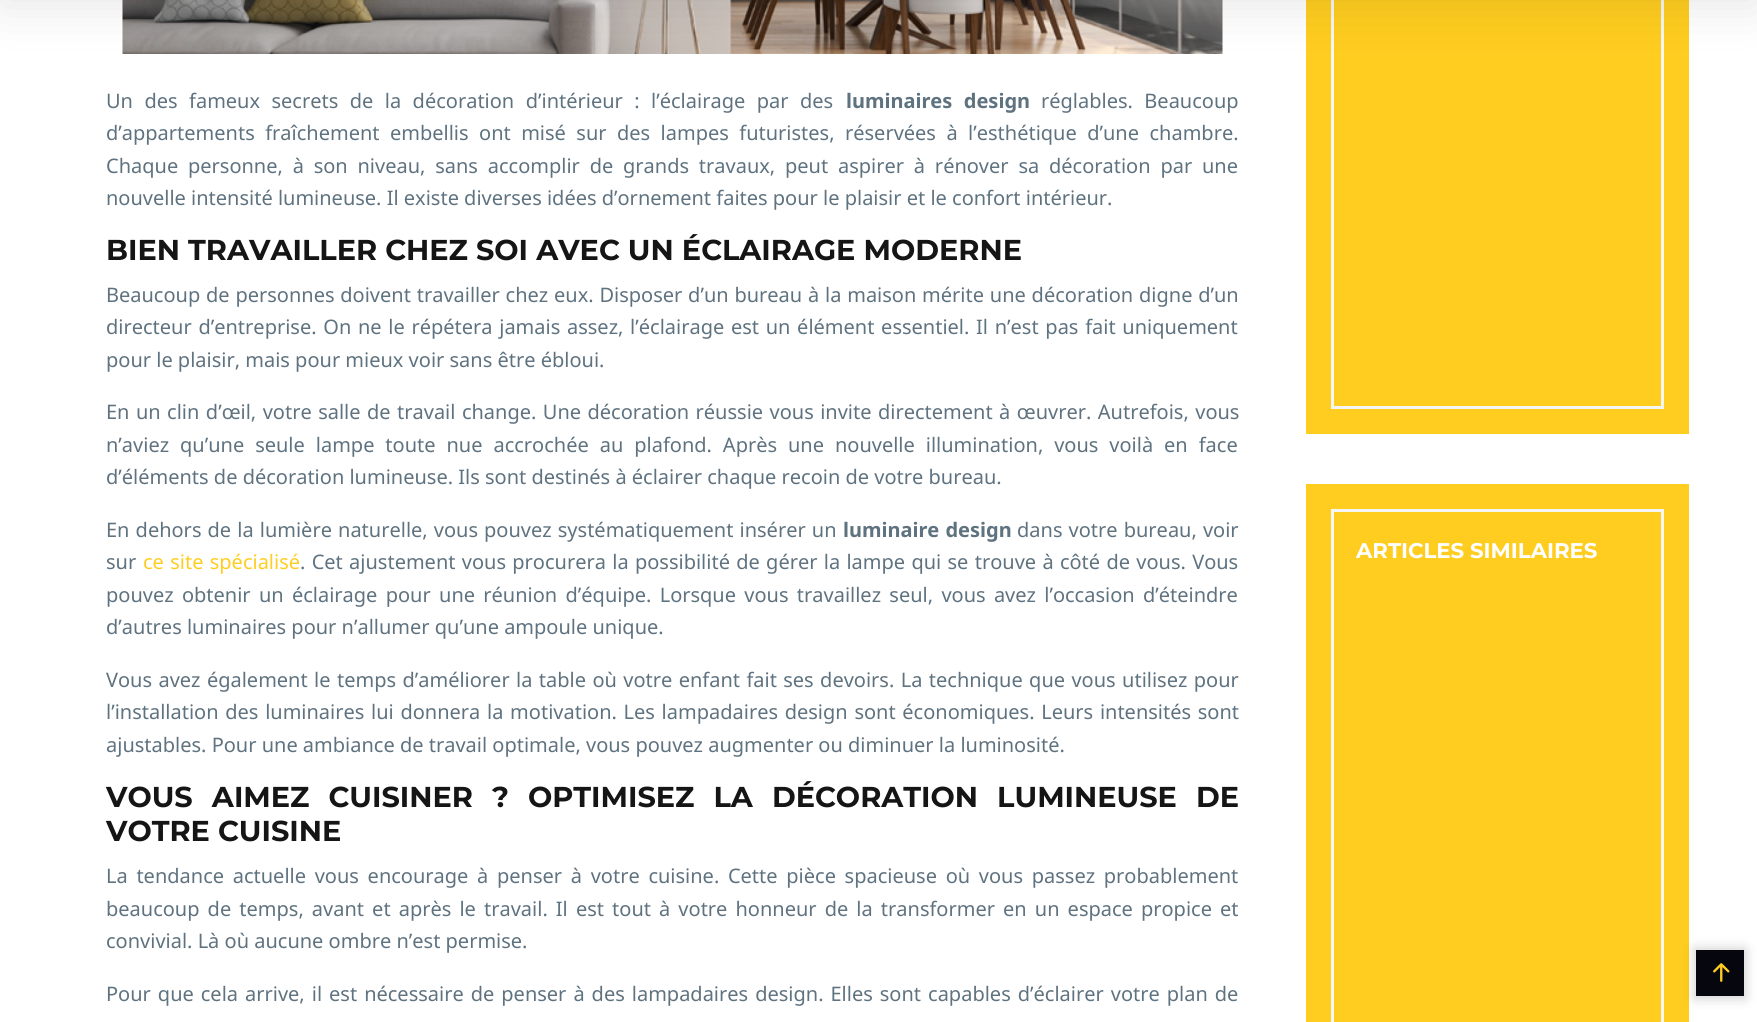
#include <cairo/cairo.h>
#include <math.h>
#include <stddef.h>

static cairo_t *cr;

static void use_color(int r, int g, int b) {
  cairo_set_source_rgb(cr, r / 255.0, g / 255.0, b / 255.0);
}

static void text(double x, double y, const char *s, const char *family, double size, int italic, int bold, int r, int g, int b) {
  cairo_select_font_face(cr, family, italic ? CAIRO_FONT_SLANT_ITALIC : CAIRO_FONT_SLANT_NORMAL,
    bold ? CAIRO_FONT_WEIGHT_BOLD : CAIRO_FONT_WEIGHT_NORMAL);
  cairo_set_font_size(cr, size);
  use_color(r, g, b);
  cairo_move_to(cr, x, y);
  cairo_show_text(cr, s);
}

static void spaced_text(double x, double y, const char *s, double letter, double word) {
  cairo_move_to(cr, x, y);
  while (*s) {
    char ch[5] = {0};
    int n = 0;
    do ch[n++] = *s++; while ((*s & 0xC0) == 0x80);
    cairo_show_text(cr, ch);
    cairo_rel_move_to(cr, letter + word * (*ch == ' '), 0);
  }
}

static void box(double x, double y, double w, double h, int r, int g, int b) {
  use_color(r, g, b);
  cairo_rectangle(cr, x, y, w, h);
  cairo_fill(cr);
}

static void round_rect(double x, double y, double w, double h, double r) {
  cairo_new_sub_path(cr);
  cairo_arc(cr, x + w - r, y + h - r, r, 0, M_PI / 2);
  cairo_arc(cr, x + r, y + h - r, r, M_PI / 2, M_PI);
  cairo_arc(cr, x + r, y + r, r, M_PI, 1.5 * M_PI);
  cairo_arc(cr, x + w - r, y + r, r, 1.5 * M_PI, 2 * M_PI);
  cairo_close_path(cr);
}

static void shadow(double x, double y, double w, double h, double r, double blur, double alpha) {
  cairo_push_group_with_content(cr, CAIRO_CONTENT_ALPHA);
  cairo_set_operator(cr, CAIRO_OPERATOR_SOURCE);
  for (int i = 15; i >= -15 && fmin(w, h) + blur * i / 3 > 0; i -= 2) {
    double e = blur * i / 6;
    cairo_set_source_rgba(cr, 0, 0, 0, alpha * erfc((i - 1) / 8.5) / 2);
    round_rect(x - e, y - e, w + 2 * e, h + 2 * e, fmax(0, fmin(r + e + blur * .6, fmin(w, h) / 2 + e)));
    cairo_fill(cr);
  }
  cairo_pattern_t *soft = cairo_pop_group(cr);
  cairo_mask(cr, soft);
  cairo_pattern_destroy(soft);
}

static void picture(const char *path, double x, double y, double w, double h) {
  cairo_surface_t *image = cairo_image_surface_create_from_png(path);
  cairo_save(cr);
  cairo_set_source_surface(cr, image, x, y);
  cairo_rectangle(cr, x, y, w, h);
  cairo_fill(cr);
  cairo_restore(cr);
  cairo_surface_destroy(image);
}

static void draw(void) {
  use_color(255, 255, 255);
  cairo_paint(cr);
  picture("img_01.png", 122, 0, 1101, 54);
  box(1306, 0, 383, 434, 255, 205, 32);
  cairo_rectangle(cr, 1332.5, -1.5, 330, 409);
  use_color(245, 245, 245);
  cairo_set_line_width(cr, 3);
  cairo_stroke(cr);
  use_color(0, 0, 0);
  shadow(0, -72, 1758, 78, 0, 24, 0.1);
  box(1306, 484, 383, 538, 255, 205, 32);
  cairo_rectangle(cr, 1332.5, 510.5, 330, 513);
  use_color(245, 245, 245);
  cairo_stroke(cr);
  use_color(0, 0, 0);
  shadow(1695, 949, 50, 49, 0, 6, 0.2);
  box(1696, 950, 48, 46, 6, 6, 15);
  picture("img_02.png", 1713, 963, 17, 19);
  cairo_select_font_face(cr, "Noto Sans", CAIRO_FONT_SLANT_NORMAL, CAIRO_FONT_WEIGHT_NORMAL);
  cairo_set_font_size(cr, 20);
  use_color(95, 114, 127);
  spaced_text(106, 108, "Un des fameux secrets de la décoration d’intérieur : l’éclairage par des", 0, 6.25);
  cairo_select_font_face(cr, "Noto Sans", CAIRO_FONT_SLANT_NORMAL, CAIRO_FONT_WEIGHT_BOLD);
  spaced_text(846, 108, "luminaires design", 0, 6.25);
  cairo_select_font_face(cr, "Noto Sans", CAIRO_FONT_SLANT_NORMAL, CAIRO_FONT_WEIGHT_NORMAL);
  spaced_text(1041, 108, "réglables. Beaucoup", 0, 6.25);
  spaced_text(106, 140, "d’appartements fraîchement embellis ont misé sur des lampes futuristes, réservées à l’esthétique d’une chambre.", 0, 5.25);
  spaced_text(106, 173, "Chaque personne, à son niveau, sans accomplir de grands travaux, peut aspirer à rénover sa décoration par une", 0, 4.6);
  text(106, 205, "nouvelle intensité lumineuse. Il existe diverses idées d’ornement faites pour le plaisir et le confort intérieur.", "Noto Sans", 20, 0, 0, 95, 114, 127);
  text(106, 260, "BIEN TRAVAILLER CHEZ SOI AVEC UN ÉCLAIRAGE MODERNE", "Montserrat Thin", 28.75, 0, 0, 21, 21, 21);
  cairo_select_font_face(cr, "Noto Sans", CAIRO_FONT_SLANT_NORMAL, CAIRO_FONT_WEIGHT_NORMAL);
  cairo_set_font_size(cr, 20);
  use_color(95, 114, 127);
  spaced_text(106, 302, "Beaucoup de personnes doivent travailler chez eux. Disposer d’un bureau à la maison mérite une décoration digne d’un", 0, 0.6);
  spaced_text(106, 334, "directeur d’entreprise. On ne le répétera jamais assez, l’éclairage est un élément essentiel. Il n’est pas fait uniquement", 0, 1.5);
  text(106, 367, "pour le plaisir, mais pour mieux voir sans être ébloui.", "Noto Sans", 20, 0, 0, 95, 114, 127);
  spaced_text(106, 419, "En un clin d’œil, votre salle de travail change. Une décoration réussie vous invite directement à œuvrer. Autrefois, vous", 0, 1.25);
  spaced_text(106, 452, "n’aviez qu’une seule lampe toute nue accrochée au plafond. Après une nouvelle illumination, vous voilà en face", 0, 5.75);
  text(106, 484, "d’éléments de décoration lumineuse. Ils sont destinés à éclairer chaque recoin de votre bureau.", "Noto Sans", 20, 0, 0, 95, 114, 127);
  spaced_text(106, 537, "En dehors de la lumière naturelle, vous pouvez systématiquement insérer un", 0, 0.9);
  cairo_select_font_face(cr, "Noto Sans", CAIRO_FONT_SLANT_NORMAL, CAIRO_FONT_WEIGHT_BOLD);
  spaced_text(843, 537, "luminaire design", 0, 0.9);
  cairo_select_font_face(cr, "Noto Sans", CAIRO_FONT_SLANT_NORMAL, CAIRO_FONT_WEIGHT_NORMAL);
  spaced_text(1017, 537, "dans votre bureau, voir", 0, 0.9);
  text(106, 569, "sur", "Noto Sans", 20, 0, 0, 95, 114, 127);
  use_color(255, 205, 32);
  spaced_text(143, 569, "ce site spécialisé", 0, 1.1);
  use_color(95, 114, 127);
  spaced_text(300, 569, ". Cet ajustement vous procurera la possibilité de gérer la lampe qui se trouve à côté de vous. Vous", 0, 1.1);
  spaced_text(106, 602, "pouvez obtenir un éclairage pour une réunion d’équipe. Lorsque vous travaillez seul, vous avez l’occasion d’éteindre", 0, 3.1);
  text(106, 634, "d’autres luminaires pour n’allumer qu’une ampoule unique.", "Noto Sans", 20, 0, 0, 95, 114, 127);
  spaced_text(106, 687, "Vous avez également le temps d’améliorer la table où votre enfant fait ses devoirs. La technique que vous utilisez pour", 0, 1.2);
  spaced_text(106, 719, "l’installation des luminaires lui donnera la motivation. Les lampadaires design sont économiques. Leurs intensités sont", 0, 1.5);
  text(106, 752, "ajustables. Pour une ambiance de travail optimale, vous pouvez augmenter ou diminuer la luminosité.", "Noto Sans", 20, 0, 0, 95, 114, 127);
  cairo_select_font_face(cr, "Montserrat Thin", CAIRO_FONT_SLANT_NORMAL, CAIRO_FONT_WEIGHT_NORMAL);
  cairo_set_font_size(cr, 28.75);
  use_color(21, 21, 21);
  spaced_text(106, 807, "VOUS AIMEZ CUISINER ? OPTIMISEZ LA DÉCORATION LUMINEUSE DE", 0, 11);
  text(106, 841, "VOTRE CUISINE", "Montserrat Thin", 28.75, 0, 0, 21, 21, 21);
  cairo_select_font_face(cr, "Noto Sans", CAIRO_FONT_SLANT_NORMAL, CAIRO_FONT_WEIGHT_NORMAL);
  cairo_set_font_size(cr, 20);
  use_color(95, 114, 127);
  spaced_text(106, 883, "La tendance actuelle vous encourage à penser à votre cuisine. Cette pièce spacieuse où vous passez probablement", 0, 3.5);
  spaced_text(106, 916, "beaucoup de temps, avant et après le travail. Il est tout à votre honneur de la transformer en un espace propice et", 0, 2.9);
  text(106, 948, "convivial. Là où aucune ombre n’est permise.", "Noto Sans", 20, 0, 0, 95, 114, 127);
  spaced_text(106, 1001, "Pour que cela arrive, il est nécessaire de penser à des lampadaires design. Elles sont capables d’éclairer votre plan de", 0, 1.8);
  text(1356, 558, "ARTICLES SIMILAIRES", "Montserrat Thin", 21.25, 0, 0, 255, 255, 255);
}

int main(void) {
  cairo_surface_t *surface = cairo_image_surface_create(CAIRO_FORMAT_RGB24, 1757, 1022);
  cr = cairo_create(surface);
  cairo_font_options_t *options = cairo_font_options_create();
  cairo_font_options_set_hint_metrics(options, CAIRO_HINT_METRICS_OFF);
  cairo_font_options_set_hint_style(options, CAIRO_HINT_STYLE_NONE);
  cairo_set_font_options(cr, options);
  cairo_set_miter_limit(cr, 4);
  draw();
  cairo_surface_write_to_png(surface, "out.png");
  cairo_font_options_destroy(options);
  cairo_destroy(cr);
  cairo_surface_destroy(surface);
  return 0;
}
